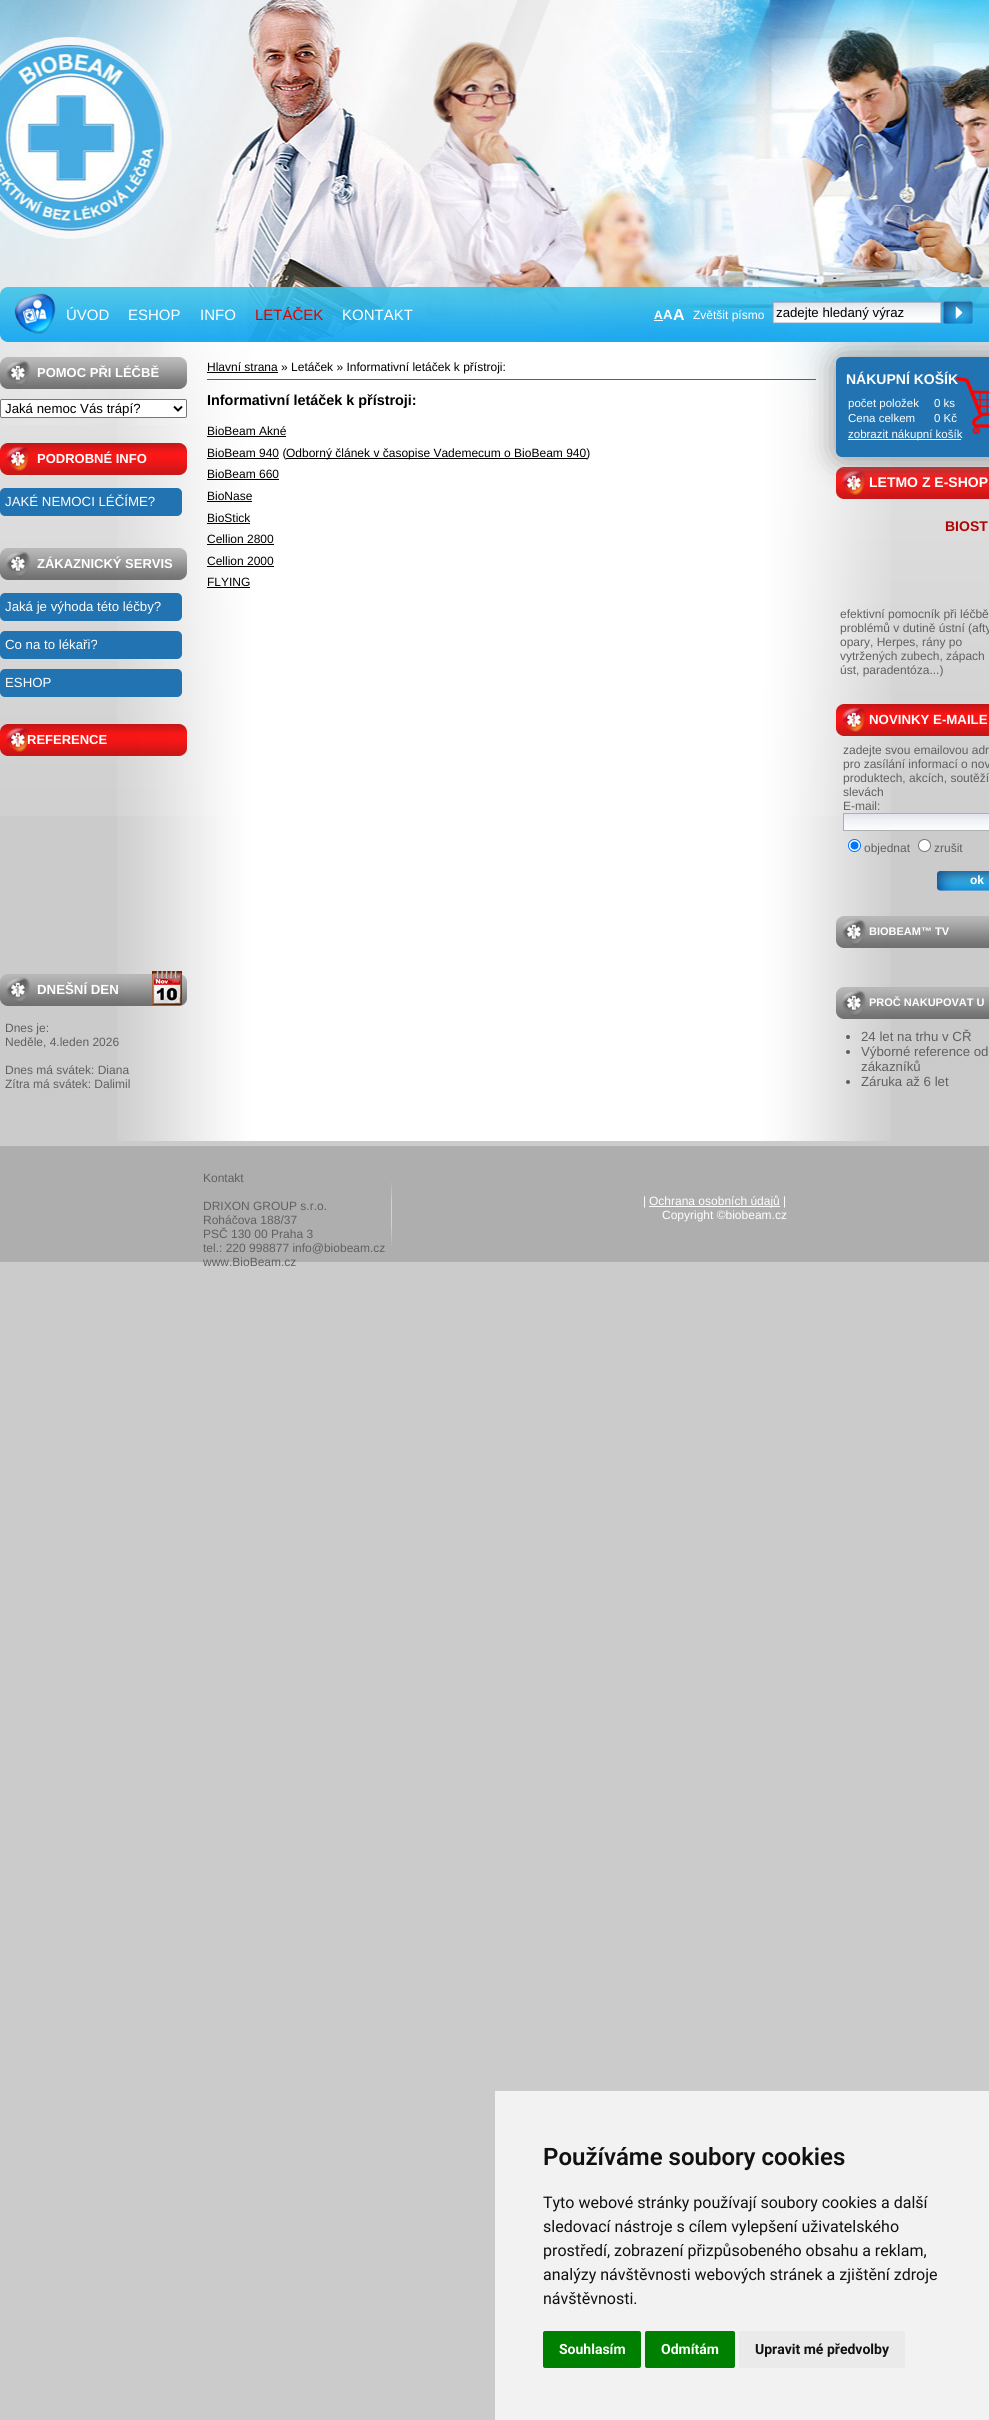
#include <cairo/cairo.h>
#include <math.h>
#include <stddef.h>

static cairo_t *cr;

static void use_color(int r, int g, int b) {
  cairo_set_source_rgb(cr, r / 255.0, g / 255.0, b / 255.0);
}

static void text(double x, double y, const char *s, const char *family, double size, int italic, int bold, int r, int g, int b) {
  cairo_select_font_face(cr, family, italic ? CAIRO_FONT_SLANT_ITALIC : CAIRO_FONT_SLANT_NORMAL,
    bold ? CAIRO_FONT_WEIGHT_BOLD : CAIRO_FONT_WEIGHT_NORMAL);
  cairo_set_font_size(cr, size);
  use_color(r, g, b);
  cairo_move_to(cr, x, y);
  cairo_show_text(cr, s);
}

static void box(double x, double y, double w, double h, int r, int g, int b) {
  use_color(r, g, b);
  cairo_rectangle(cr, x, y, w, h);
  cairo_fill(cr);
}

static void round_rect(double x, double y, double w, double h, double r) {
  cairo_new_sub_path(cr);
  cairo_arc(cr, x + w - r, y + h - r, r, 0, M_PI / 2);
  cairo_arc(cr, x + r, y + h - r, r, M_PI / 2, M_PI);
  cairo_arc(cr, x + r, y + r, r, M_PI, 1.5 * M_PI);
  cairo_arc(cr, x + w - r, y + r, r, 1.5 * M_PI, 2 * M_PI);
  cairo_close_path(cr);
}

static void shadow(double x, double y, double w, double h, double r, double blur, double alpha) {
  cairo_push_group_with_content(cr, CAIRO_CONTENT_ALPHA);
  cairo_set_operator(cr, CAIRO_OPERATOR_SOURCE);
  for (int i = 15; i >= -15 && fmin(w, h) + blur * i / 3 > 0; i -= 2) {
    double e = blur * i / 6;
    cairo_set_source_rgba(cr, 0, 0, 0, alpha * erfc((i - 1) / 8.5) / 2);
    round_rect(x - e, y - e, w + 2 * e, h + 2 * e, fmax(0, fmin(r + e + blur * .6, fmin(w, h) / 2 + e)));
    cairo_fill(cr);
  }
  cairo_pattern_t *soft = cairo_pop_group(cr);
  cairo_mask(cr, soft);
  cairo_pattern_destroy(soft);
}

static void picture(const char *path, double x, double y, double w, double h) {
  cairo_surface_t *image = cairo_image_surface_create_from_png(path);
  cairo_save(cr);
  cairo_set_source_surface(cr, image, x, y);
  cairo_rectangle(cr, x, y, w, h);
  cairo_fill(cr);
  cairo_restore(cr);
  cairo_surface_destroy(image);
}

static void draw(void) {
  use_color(203, 203, 203);
  cairo_paint(cr);
  picture("img_01.png", 0, 425, 989, 391);
  picture("img_02.png", 0, 0, 989, 425);
  picture("img_05.png", 117, 342, 774, 799);
  box(207, 379, 609, 1, 88, 95, 104);
  picture("img_13.png", 836, 467, 153, 32);
  use_color(147, 147, 147);
  shadow(836, 358, 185, 100, 6, 15, 1);
  picture("img_03.png", 0, 287, 989, 55);
  box(654, 320, 9, 1, 255, 255, 255);
  picture("img_04.png", 772, 301, 201, 23);
  picture("img_06.png", 0, 357, 187, 32);
  round_rect(0.5, 399.5, 186, 18, 1.5);
  cairo_fill_preserve(cr);
  use_color(118, 118, 118);
  cairo_set_line_width(cr, 1);
  cairo_stroke(cr);
  cairo_new_path(cr);
  cairo_move_to(cr, 174, 406.5);
  cairo_line_to(cr, 178, 410.5);
  cairo_line_to(cr, 182, 406.5);
  use_color(0, 0, 0);
  cairo_set_line_width(cr, 2);
  cairo_stroke(cr);
  picture("img_07.png", 0, 443, 187, 32);
  use_color(33, 115, 177);
  round_rect(0, 488, 182, 28, 5);
  cairo_fill(cr);
  picture("img_08.png", 0, 548, 187, 32);
  round_rect(0, 593, 182, 28, 5);
  cairo_fill(cr);
  round_rect(0, 631, 182, 28, 5);
  cairo_fill(cr);
  round_rect(0, 669, 182, 28, 5);
  cairo_fill(cr);
  picture("img_09.png", 0, 724, 187, 32);
  picture("img_10.png", 0, 974, 187, 32);
  picture("img_11.png", 152, 971, 30, 34);
  box(207, 372, 71, 1, 0, 0, 0);
  box(207, 436, 79, 1, 0, 0, 0);
  box(207, 458, 72, 1, 0, 0, 0);
  box(286, 458, 301, 1, 0, 0, 0);
  box(207, 479, 72, 1, 0, 0, 0);
  box(207, 501, 45, 1, 0, 0, 0);
  box(207, 523, 43, 1, 0, 0, 0);
  box(207, 544, 67, 1, 0, 0, 0);
  box(207, 566, 67, 1, 0, 0, 0);
  box(207, 587, 43, 1, 0, 0, 0);
  use_color(33, 115, 177);
  round_rect(836, 357, 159, 100, 6);
  cairo_fill(cr);
  picture("img_12.png", 956, 377, 33, 57);
  box(848, 439, 113, 1, 255, 255, 255);
  picture("img_14.png", 836, 704, 153, 32);
  picture("img_15.png", 844, 814, 145, 16);
  cairo_rectangle(cr, 843.5, 813.5, 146, 17);
  use_color(174, 175, 175);
  cairo_set_line_width(cr, 1);
  cairo_stroke(cr);
  use_color(255, 255, 255);
  cairo_arc(cr, 854.5, 845.5, 6, 0, 2 * M_PI);
  cairo_fill_preserve(cr);
  use_color(0, 117, 255);
  cairo_stroke(cr);
  cairo_arc(cr, 854.5, 845.5, 4, 0, 2 * M_PI);
  cairo_fill(cr);
  use_color(255, 255, 255);
  cairo_arc(cr, 924.5, 845.5, 6, 0, 2 * M_PI);
  cairo_fill_preserve(cr);
  use_color(118, 118, 118);
  cairo_stroke(cr);
  picture("img_16.png", 937, 871, 52, 20);
  picture("img_17.png", 836, 916, 153, 32);
  picture("img_17.png", 836, 987, 153, 32);
  use_color(95, 96, 96);
  cairo_arc(cr, 848, 1037, 2, 0, 2 * M_PI);
  cairo_fill(cr);
  cairo_arc(cr, 848, 1052, 2, 0, 2 * M_PI);
  cairo_fill(cr);
  cairo_arc(cr, 848, 1082, 2, 0, 2 * M_PI);
  cairo_fill(cr);
  box(0, 1146, 989, 116, 175, 174, 174);
  picture("img_18.png", 391, 1182, 1, 64);
  box(649, 1206, 131, 1, 255, 255, 255);
  box(495, 2091, 494, 329, 242, 242, 242);
  use_color(0, 128, 0);
  round_rect(543, 2331, 98, 37, 2);
  cairo_fill(cr);
  round_rect(645, 2331, 90, 37, 2);
  cairo_fill(cr);
  use_color(234, 234, 234);
  round_rect(739, 2331, 166, 37, 2);
  cairo_fill(cr);
  text(66, 320, "ÚVOD", "Liberation Sans", 15, 0, 0, 255, 255, 255);
  text(128, 320, "ESHOP", "Liberation Sans", 15, 0, 0, 255, 255, 255);
  text(200, 320, "INFO", "Liberation Sans", 15, 0, 0, 255, 255, 255);
  text(255, 320, "LETÁČEK", "Liberation Sans", 15, 0, 0, 223, 0, 0);
  text(342, 320, "KONTAKT", "Liberation Sans", 15, 0, 0, 255, 255, 255);
  text(654, 319, "A", "Liberation Sans", 12, 0, 1, 255, 255, 255);
  text(663, 319, "A", "Liberation Sans", 13.25, 0, 1, 255, 255, 255);
  text(673, 320, "A", "Liberation Sans", 16, 0, 1, 255, 255, 255);
  text(693, 319, "Zvětšit písmo", "Liberation Sans", 12, 0, 0, 255, 255, 255);
  text(776, 317, "zadejte hledaný výraz", "Liberation Sans", 13.25, 0, 0, 0, 0, 0);
  text(37, 377, "POMOC PŘI LÉČBĚ", "Liberation Sans", 13, 0, 1, 255, 255, 255);
  text(5, 413, "Jaká nemoc Vás trápí?", "Liberation Sans", 13.25, 0, 0, 0, 0, 0);
  text(37, 463, "PODROBNÉ INFO", "Liberation Sans", 13, 0, 1, 255, 255, 255);
  text(5, 506, "JAKÉ NEMOCI LÉČÍME?", "Liberation Sans", 13.25, 0, 0, 255, 255, 255);
  text(37, 568, "ZÁKAZNICKÝ SERVIS", "Liberation Sans", 13, 0, 1, 255, 255, 255);
  text(5, 611, "Jaká je výhoda této léčby?", "Liberation Sans", 13.25, 0, 0, 255, 255, 255);
  text(5, 649, "Co na to lékaři?", "Liberation Sans", 13.25, 0, 0, 255, 255, 255);
  text(5, 687, "ESHOP", "Liberation Sans", 13.25, 0, 0, 255, 255, 255);
  text(27, 744, "REFERENCE", "Liberation Sans", 13, 0, 1, 255, 255, 255);
  text(37, 994, "DNEŠNÍ DEN", "Liberation Sans", 13.25, 0, 1, 255, 255, 255);
  text(5, 1032, "Dnes je:", "Liberation Sans", 12, 0, 0, 97, 96, 96);
  text(5, 1046, "Neděle, 4.leden 2026", "Liberation Sans", 12, 0, 0, 97, 96, 96);
  text(5, 1074, "Dnes má svátek: Diana", "Liberation Sans", 12, 0, 0, 97, 96, 96);
  text(5, 1088, "Zítra má svátek: Dalimil", "Liberation Sans", 12, 0, 0, 97, 96, 96);
  text(207, 371, "Hlavní strana » Letáček » Informativní letáček k přístroji:", "Liberation Sans", 12, 0, 0, 0, 0, 0);
  text(207, 405, "Informativní letáček k přístroji:", "Liberation Sans", 14.4, 0, 1, 0, 0, 0);
  text(207, 435, "BioBeam Akné", "Liberation Sans", 12, 0, 0, 0, 0, 0);
  text(207, 457, "BioBeam 940 (", "Liberation Sans", 12, 0, 0, 0, 0, 0);
  text(286, 457, "Odborný článek v časopise Vademecum o BioBeam 940)", "Liberation Sans", 12, 0, 0, 0, 0, 0);
  text(207, 478, "BioBeam 660", "Liberation Sans", 12, 0, 0, 0, 0, 0);
  text(207, 500, "BioNase", "Liberation Sans", 12, 0, 0, 0, 0, 0);
  text(207, 522, "BioStick", "Liberation Sans", 12, 0, 0, 0, 0, 0);
  text(207, 543, "Cellion 2800", "Liberation Sans", 12, 0, 0, 0, 0, 0);
  text(207, 565, "Cellion 2000", "Liberation Sans", 12, 0, 0, 0, 0, 0);
  text(207, 586, "FLYING", "Liberation Sans", 12, 0, 0, 0, 0, 0);
  text(846, 384, "NÁKUPNÍ KOŠÍK", "Liberation Sans", 14, 0, 1, 255, 255, 255);
  text(848, 407, "počet položek", "Liberation Sans", 11.5, 0, 0, 255, 255, 255);
  text(934, 407, "0 ks", "Liberation Sans", 11.5, 0, 0, 255, 255, 255);
  text(848, 422, "Cena celkem", "Liberation Sans", 11.5, 0, 0, 255, 255, 255);
  text(934, 422, "0 Kč", "Liberation Sans", 11.5, 0, 0, 255, 255, 255);
  text(848, 438, "zobrazit nákupní košík", "Liberation Sans", 11.5, 0, 0, 255, 255, 255);
  text(869, 487, "LETMO Z E-SHOP", "Liberation Sans", 14, 0, 1, 255, 255, 255);
  text(945, 531, "BIOST", "Liberation Sans", 14, 0, 1, 180, 3, 3);
  text(840, 618, "efektivní pomocník při léčbě", "Liberation Sans", 12, 0, 0, 97, 96, 96);
  text(840, 632, "problémů v dutině ústní (afty", "Liberation Sans", 12, 0, 0, 97, 96, 96);
  text(840, 646, "opary, Herpes, rány po", "Liberation Sans", 12, 0, 0, 97, 96, 96);
  text(840, 660, "vytržených zubech, zápach", "Liberation Sans", 12, 0, 0, 97, 96, 96);
  text(840, 674, "úst, paradentóza...)", "Liberation Sans", 12, 0, 0, 97, 96, 96);
  text(869, 724, "NOVINKY E-MAILE", "Liberation Sans", 13.25, 0, 1, 255, 255, 255);
  text(843, 754, "zadejte svou emailovou adr", "Liberation Sans", 12, 0, 0, 97, 96, 96);
  text(843, 768, "pro zasílání informací o nov", "Liberation Sans", 12, 0, 0, 97, 96, 96);
  text(843, 782, "produktech, akcích, soutěží", "Liberation Sans", 12, 0, 0, 97, 96, 96);
  text(843, 796, "slevách", "Liberation Sans", 12, 0, 0, 97, 96, 96);
  text(843, 810, "E-mail:", "Liberation Sans", 12, 0, 0, 97, 96, 96);
  text(864, 852, "objednat", "Liberation Sans", 12, 0, 0, 97, 96, 96);
  text(934, 852, "zrušit", "Liberation Sans", 12, 0, 0, 97, 96, 96);
  text(970, 884, "ok", "Liberation Sans", 12, 0, 1, 255, 255, 255);
  text(869, 935, "BIOBEAM™ TV", "Liberation Sans", 11, 0, 1, 255, 255, 255);
  text(869, 1006, "PROČ NAKUPOVAT U", "Liberation Sans", 11, 0, 1, 255, 255, 255);
  text(861, 1041, "24 let na trhu v CŘ", "Liberation Sans", 13.25, 0, 0, 97, 96, 96);
  text(861, 1056, "Výborné reference od", "Liberation Sans", 13.25, 0, 0, 97, 96, 96);
  text(861, 1071, "zákazníků", "Liberation Sans", 13.25, 0, 0, 97, 96, 96);
  text(861, 1086, "Záruka až 6 let", "Liberation Sans", 13.25, 0, 0, 97, 96, 96);
  text(203, 1182, "Kontakt", "Liberation Sans", 12, 0, 0, 97, 96, 96);
  text(203, 1210, "DRIXON GROUP s.r.o.", "Liberation Sans", 12, 0, 0, 97, 96, 96);
  text(203, 1224, "Roháčova 188/37", "Liberation Sans", 12, 0, 0, 97, 96, 96);
  text(203, 1238, "PSČ 130 00 Praha 3", "Liberation Sans", 12, 0, 0, 97, 96, 96);
  text(203, 1252, "tel.: 220 998877 info@biobeam.cz", "Liberation Sans", 12, 0, 0, 97, 96, 96);
  text(203, 1266, "www.BioBeam.cz", "Liberation Sans", 12, 0, 0, 97, 96, 96);
  text(643, 1205, "|", "Liberation Sans", 12, 0, 0, 255, 255, 255);
  text(649, 1205, "Ochrana osobních údajů |", "Liberation Sans", 12, 0, 0, 255, 255, 255);
  text(662, 1219, "Copyright ©biobeam.cz", "Liberation Sans", 12, 0, 0, 255, 255, 255);
  text(543, 2165, "Používáme soubory cookies", "Roboto SemiBold", 24, 0, 0, 17, 17, 17);
  text(543, 2208, "Tyto webové stránky používají soubory cookies a další", "Roboto", 16, 0, 0, 17, 17, 17);
  text(543, 2232, "sledovací nástroje s cílem vylepšení uživatelského", "Roboto", 16, 0, 0, 17, 17, 17);
  text(543, 2256, "prostředí, zobrazení přizpůsobeného obsahu a reklam,", "Roboto", 16, 0, 0, 17, 17, 17);
  text(543, 2280, "analýzy návštěvnosti webových stránek a zjištění zdroje", "Roboto", 16, 0, 0, 17, 17, 17);
  text(543, 2304, "návštěvnosti.", "Roboto", 16, 0, 0, 17, 17, 17);
  text(559, 2354, "Souhlasím", "Roboto", 14, 0, 1, 255, 255, 255);
  text(661, 2354, "Odmítám", "Roboto", 14, 0, 1, 255, 255, 255);
  text(755, 2354, "Upravit mé předvolby", "Roboto", 14, 0, 1, 17, 17, 17);
}

int main(void) {
  cairo_surface_t *surface = cairo_image_surface_create(CAIRO_FORMAT_RGB24, 989, 2420);
  cr = cairo_create(surface);
  cairo_font_options_t *options = cairo_font_options_create();
  cairo_font_options_set_hint_metrics(options, CAIRO_HINT_METRICS_OFF);
  cairo_font_options_set_hint_style(options, CAIRO_HINT_STYLE_NONE);
  cairo_set_font_options(cr, options);
  cairo_set_miter_limit(cr, 4);
  draw();
  cairo_surface_write_to_png(surface, "out.png");
  cairo_font_options_destroy(options);
  cairo_destroy(cr);
  cairo_surface_destroy(surface);
  return 0;
}
